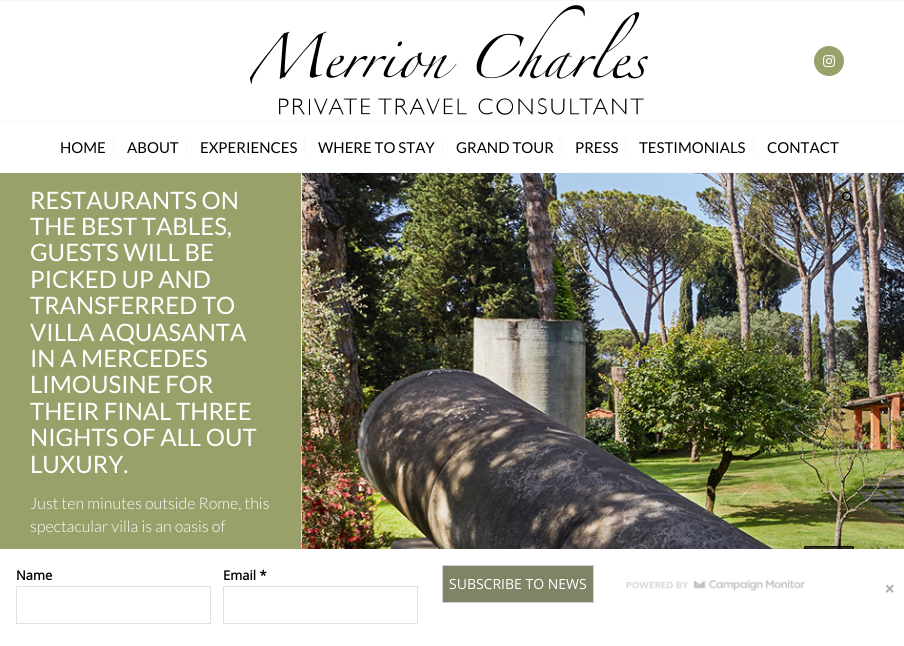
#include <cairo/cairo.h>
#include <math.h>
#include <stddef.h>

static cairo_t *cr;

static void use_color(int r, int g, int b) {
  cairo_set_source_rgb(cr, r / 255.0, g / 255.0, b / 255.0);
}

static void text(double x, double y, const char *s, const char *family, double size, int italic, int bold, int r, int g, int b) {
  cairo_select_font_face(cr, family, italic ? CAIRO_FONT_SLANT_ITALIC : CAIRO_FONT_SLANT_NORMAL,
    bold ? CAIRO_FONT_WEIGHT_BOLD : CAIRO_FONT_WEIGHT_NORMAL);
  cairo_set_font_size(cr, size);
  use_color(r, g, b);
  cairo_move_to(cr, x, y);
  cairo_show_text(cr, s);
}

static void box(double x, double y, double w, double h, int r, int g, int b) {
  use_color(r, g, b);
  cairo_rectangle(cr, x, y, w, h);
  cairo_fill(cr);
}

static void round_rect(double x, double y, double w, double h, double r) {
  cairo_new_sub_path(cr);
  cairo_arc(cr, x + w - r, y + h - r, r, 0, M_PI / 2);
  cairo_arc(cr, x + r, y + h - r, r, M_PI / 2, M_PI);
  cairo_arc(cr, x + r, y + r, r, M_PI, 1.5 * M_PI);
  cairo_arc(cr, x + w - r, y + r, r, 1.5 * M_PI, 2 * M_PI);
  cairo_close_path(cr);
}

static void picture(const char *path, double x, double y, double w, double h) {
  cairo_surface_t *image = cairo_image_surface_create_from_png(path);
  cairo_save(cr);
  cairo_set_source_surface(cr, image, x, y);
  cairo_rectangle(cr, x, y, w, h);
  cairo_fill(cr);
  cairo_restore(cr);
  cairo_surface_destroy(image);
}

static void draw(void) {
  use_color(154, 160, 106);
  cairo_paint(cr);
  box(0, 1, 904, 171, 255, 255, 255);
  box(0, 0, 904, 1, 248, 248, 248);
  box(0, 172, 904, 1, 248, 248, 248);
  picture("img_01.png", 250, 5, 398, 110);
  use_color(154, 160, 106);
  cairo_arc(cr, 829, 61, 15, 0, 2 * M_PI);
  cairo_fill(cr);
  picture("img_02.png", 823, 55, 12, 13);
  box(0, 121, 904, 1, 248, 248, 248);
  box(113, 138, 1, 18, 248, 248, 248);
  box(186, 138, 1, 18, 248, 248, 248);
  box(304, 138, 1, 18, 248, 248, 248);
  box(442, 138, 1, 18, 248, 248, 248);
  box(445, 172, 119, 1, 255, 255, 255);
  box(561, 138, 1, 18, 248, 248, 248);
  box(625, 138, 1, 18, 248, 248, 248);
  box(753, 138, 1, 18, 248, 248, 248);
  picture("img_04.png", 301, 173, 603, 376);
  picture("img_03.png", 842, 191, 12, 13);
  cairo_set_source_rgba(cr, 0, 0, 0, 0.7);
  round_rect(804, 546, 50, 50, 2);
  cairo_fill(cr);
  round_rect(804.5, 546.5, 49, 49, 1.5);
  cairo_set_line_width(cr, 1);
  cairo_stroke(cr);
  box(0, 549, 904, 97, 255, 255, 255);
  cairo_rectangle(cr, 16.5, 586.5, 194, 37);
  use_color(225, 225, 225);
  cairo_stroke(cr);
  cairo_rectangle(cr, 223.5, 586.5, 194, 37);
  cairo_stroke(cr);
  use_color(126, 133, 102);
  cairo_rectangle(cr, 442.5, 565.5, 151, 37);
  cairo_fill_preserve(cr);
  use_color(209, 209, 209);
  cairo_stroke(cr);
  picture("img_05.png", 626, 580, 179, 11);
  picture("img_06.png", 885, 584, 9, 9);
  text(60, 153, "HOME", "Lato", 15, 0, 0, 0, 0, 0);
  text(127, 153, "ABOUT", "Lato", 15, 0, 0, 0, 0, 0);
  text(200, 153, "EXPERIENCES", "Lato", 15, 0, 0, 0, 0, 0);
  text(318, 153, "WHERE TO STAY", "Lato", 15, 0, 0, 0, 0, 0);
  text(456, 153, "GRAND TOUR", "Lato", 15, 0, 0, 0, 0, 0);
  text(575, 153, "PRESS", "Lato", 15, 0, 0, 0, 0, 0);
  text(639, 153, "TESTIMONIALS", "Lato", 15, 0, 0, 0, 0, 0);
  text(767, 153, "CONTACT", "Lato", 15, 0, 0, 0, 0, 0);
  text(30, 209, "RESTAURANTS ON", "Lato", 24, 0, 0, 255, 255, 255);
  text(30, 235, "THE BEST TABLES,", "Lato", 24, 0, 0, 255, 255, 255);
  text(30, 261, "GUESTS WILL BE", "Lato", 24, 0, 0, 255, 255, 255);
  text(30, 288, "PICKED UP AND", "Lato", 24, 0, 0, 255, 255, 255);
  text(30, 314, "TRANSFERRED TO", "Lato", 24, 0, 0, 255, 255, 255);
  text(30, 341, "VILLA AQUASANTA", "Lato", 24, 0, 0, 255, 255, 255);
  text(30, 367, "IN A MERCEDES", "Lato", 24, 0, 0, 255, 255, 255);
  text(30, 393, "LIMOUSINE FOR", "Lato", 24, 0, 0, 255, 255, 255);
  text(30, 420, "THEIR FINAL THREE", "Lato", 24, 0, 0, 255, 255, 255);
  text(30, 446, "NIGHTS OF ALL OUT", "Lato", 24, 0, 0, 255, 255, 255);
  text(30, 473, "LUXURY.", "Lato", 24, 0, 0, 255, 255, 255);
  text(30, 509, "Just ten minutes outside Rome, this", "Lato Light", 16, 0, 0, 255, 255, 255);
  text(30, 532, "spectacular villa is an oasis of", "Lato Light", 16, 0, 0, 255, 255, 255);
  text(16, 580, "Name", "Open Sans", 13, 0, 1, 0, 0, 0);
  text(223, 580, "Email *", "Open Sans", 13, 0, 1, 0, 0, 0);
  text(449, 589, "SUBSCRIBE TO NEWS", "Open Sans", 14, 0, 0, 255, 255, 255);
}

int main(void) {
  cairo_surface_t *surface = cairo_image_surface_create(CAIRO_FORMAT_RGB24, 904, 646);
  cr = cairo_create(surface);
  cairo_font_options_t *options = cairo_font_options_create();
  cairo_font_options_set_hint_metrics(options, CAIRO_HINT_METRICS_OFF);
  cairo_font_options_set_hint_style(options, CAIRO_HINT_STYLE_NONE);
  cairo_set_font_options(cr, options);
  cairo_set_miter_limit(cr, 4);
  draw();
  cairo_surface_write_to_png(surface, "out.png");
  cairo_font_options_destroy(options);
  cairo_destroy(cr);
  cairo_surface_destroy(surface);
  return 0;
}
